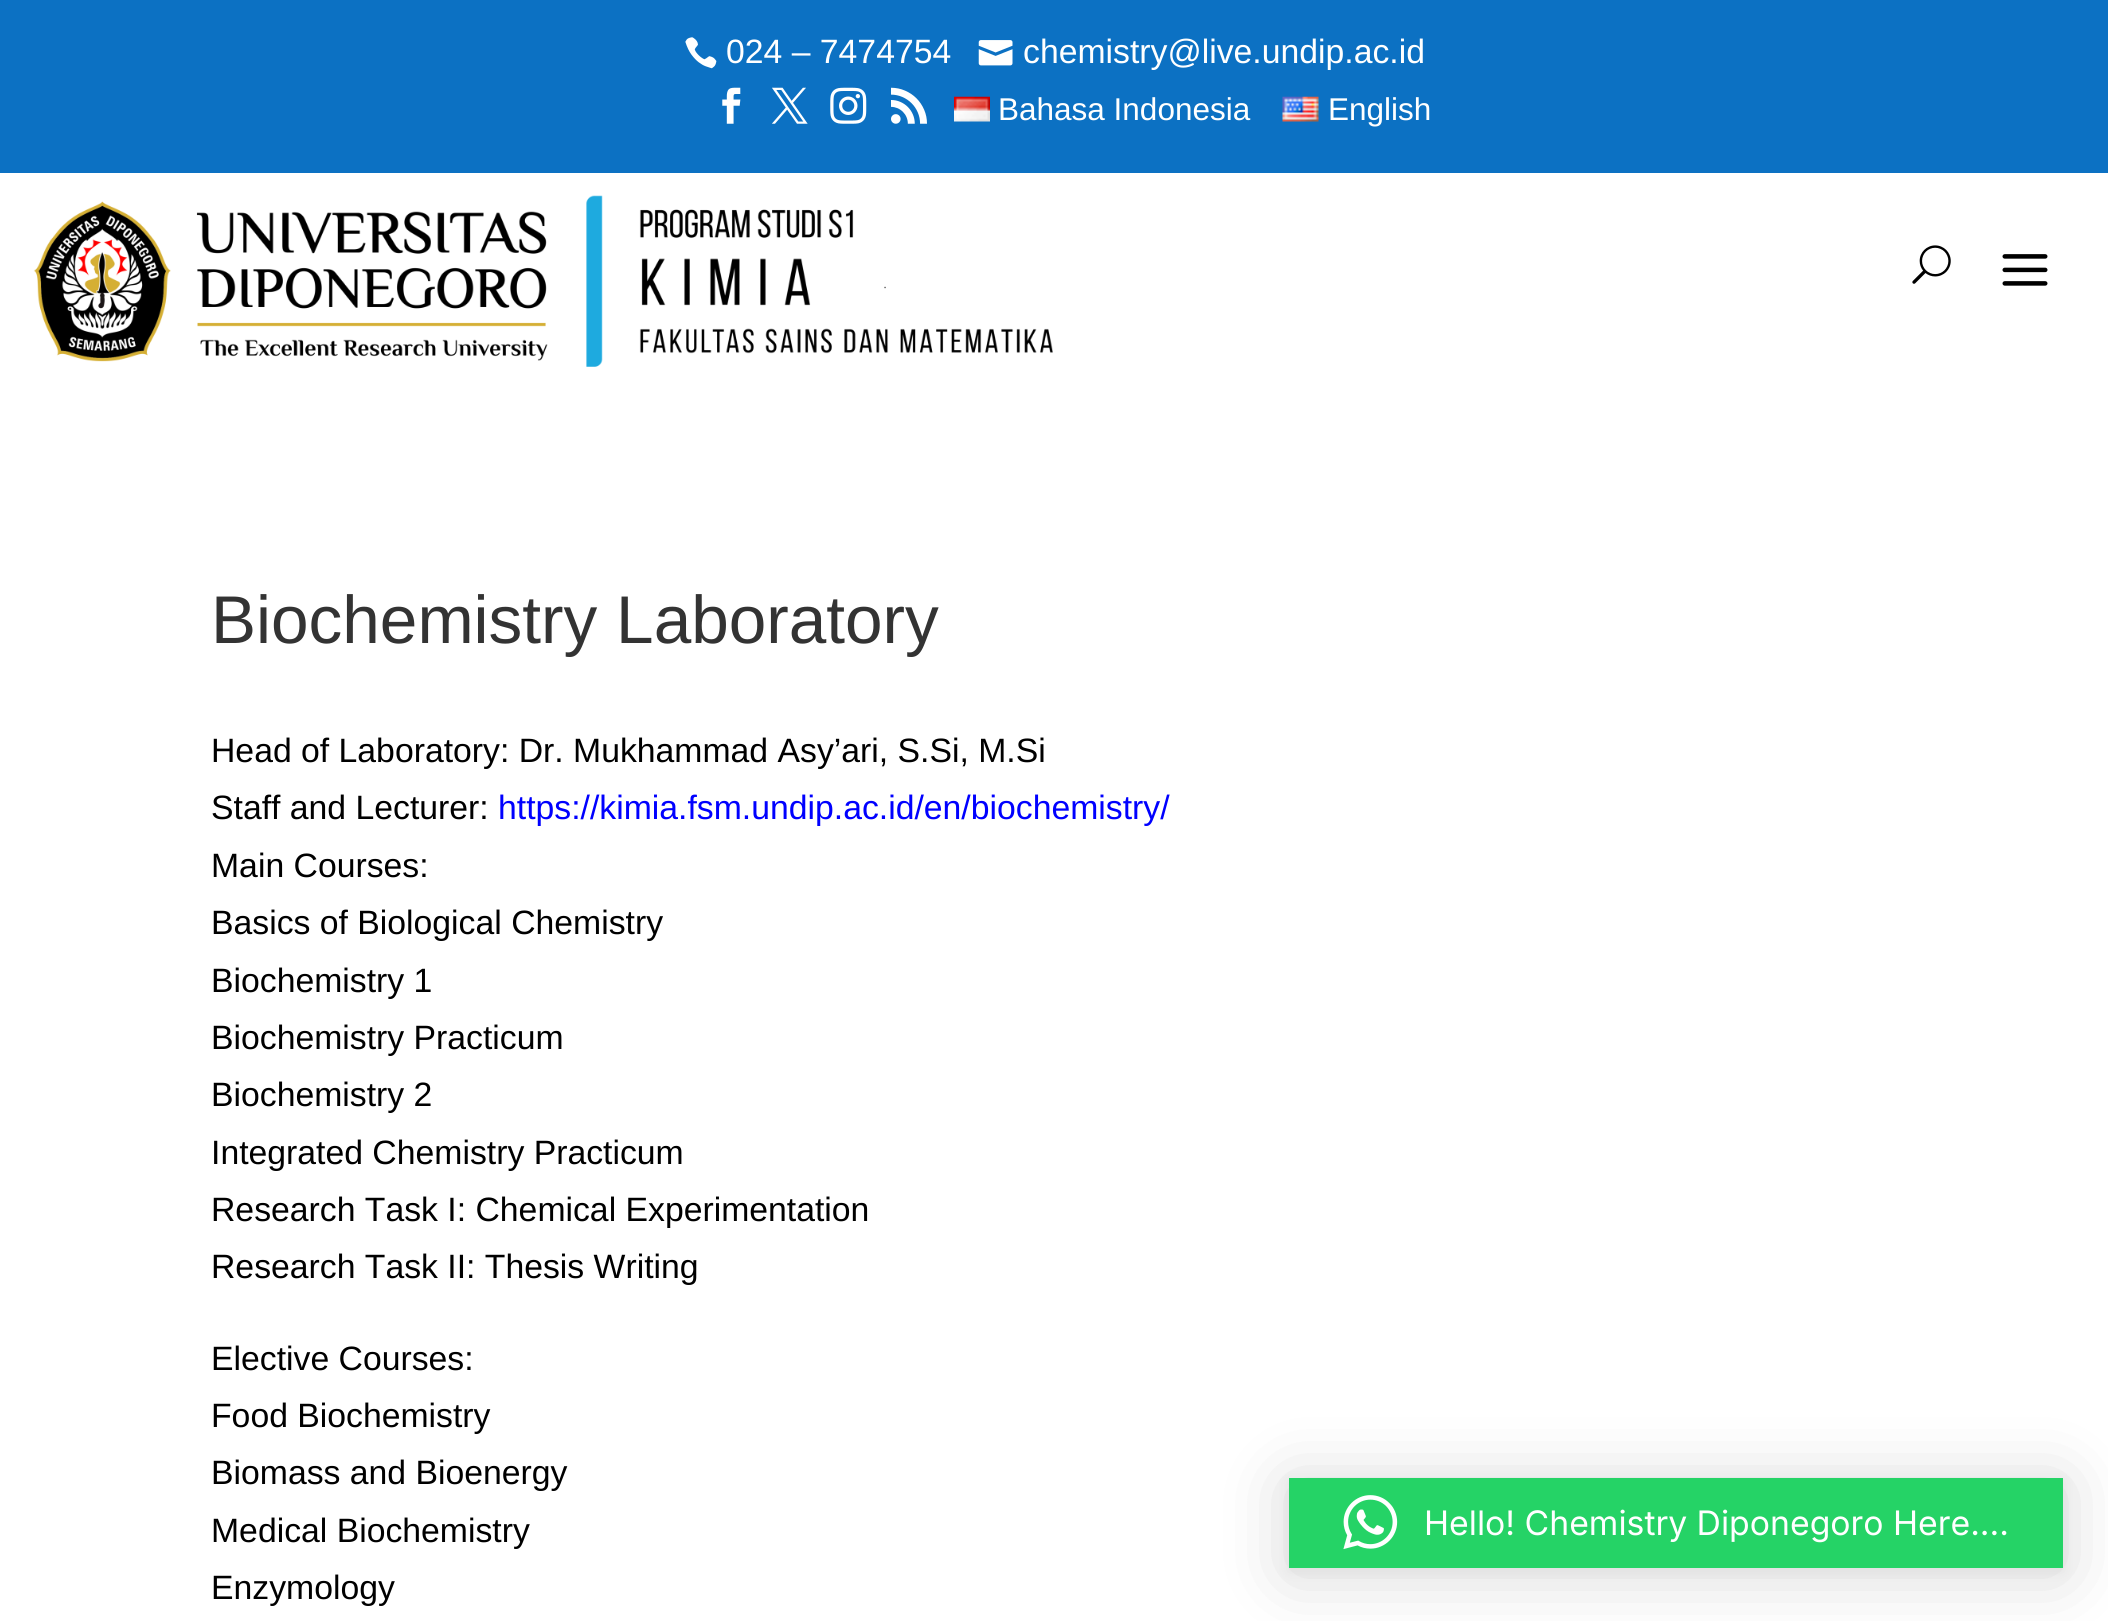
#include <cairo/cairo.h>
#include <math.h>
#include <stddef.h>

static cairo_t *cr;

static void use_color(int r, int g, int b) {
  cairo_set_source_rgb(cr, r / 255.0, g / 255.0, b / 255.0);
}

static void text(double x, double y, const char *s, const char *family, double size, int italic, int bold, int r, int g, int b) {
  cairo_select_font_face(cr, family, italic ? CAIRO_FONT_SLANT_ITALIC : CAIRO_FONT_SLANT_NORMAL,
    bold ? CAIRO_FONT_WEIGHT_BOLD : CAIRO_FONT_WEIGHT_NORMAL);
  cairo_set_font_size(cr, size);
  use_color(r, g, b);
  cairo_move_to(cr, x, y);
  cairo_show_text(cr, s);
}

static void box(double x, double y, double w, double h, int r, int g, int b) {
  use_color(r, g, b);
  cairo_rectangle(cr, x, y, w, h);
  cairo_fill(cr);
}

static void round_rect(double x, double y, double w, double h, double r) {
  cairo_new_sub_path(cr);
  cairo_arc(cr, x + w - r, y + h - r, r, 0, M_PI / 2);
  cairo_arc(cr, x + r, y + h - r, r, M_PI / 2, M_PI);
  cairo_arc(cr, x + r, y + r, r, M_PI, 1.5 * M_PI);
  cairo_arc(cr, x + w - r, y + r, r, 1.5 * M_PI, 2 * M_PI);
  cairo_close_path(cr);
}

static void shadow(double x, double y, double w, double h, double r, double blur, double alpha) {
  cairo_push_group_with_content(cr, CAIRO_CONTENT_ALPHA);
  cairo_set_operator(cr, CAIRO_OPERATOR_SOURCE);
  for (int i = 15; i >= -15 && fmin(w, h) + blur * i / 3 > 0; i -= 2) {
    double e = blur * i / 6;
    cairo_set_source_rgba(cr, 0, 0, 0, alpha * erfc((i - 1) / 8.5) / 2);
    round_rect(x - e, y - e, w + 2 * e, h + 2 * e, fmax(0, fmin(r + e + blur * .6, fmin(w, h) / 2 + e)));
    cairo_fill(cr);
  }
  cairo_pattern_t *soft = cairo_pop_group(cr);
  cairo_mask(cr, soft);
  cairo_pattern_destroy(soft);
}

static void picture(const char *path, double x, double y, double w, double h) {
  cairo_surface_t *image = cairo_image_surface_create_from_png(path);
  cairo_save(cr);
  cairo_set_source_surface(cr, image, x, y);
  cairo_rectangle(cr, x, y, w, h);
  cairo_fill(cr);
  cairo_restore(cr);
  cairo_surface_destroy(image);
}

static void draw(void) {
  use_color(255, 255, 255);
  cairo_paint(cr);
  box(0, 0, 2108, 173, 12, 113, 195);
  picture("img_01.png", 685, 37, 32, 32);
  picture("img_02.png", 978, 40, 35, 26);
  picture("img_03.png", 722, 87, 19, 37);
  picture("img_04.png", 772, 87, 36, 37);
  picture("img_05.png", 830, 87, 37, 37);
  picture("img_06.png", 891, 87, 36, 37);
  picture("img_07.png", 954, 96, 36, 26);
  picture("img_08.png", 1282, 96, 37, 26);
  picture("img_09.png", 33, 195, 1020, 172);
  picture("img_10.png", 1912, 245, 39, 39);
  picture("img_11.png", 2002, 254, 46, 32);
  use_color(0, 0, 0);
  shadow(1289, 1483, 774, 90, 0, 36, 0.16);
  shadow(1289, 1481, 774, 90, 0, 7, 0.06);
  box(1289, 1478, 774, 90, 37, 211, 102);
  picture("img_12.png", 1343, 1495, 55, 55);
  text(726, 63, "024 – 7474754", "Liberation Sans", 33.75, 0, 0, 255, 255, 255);
  text(1023, 63, "chemistry@live.undip.ac.id", "Liberation Sans", 33.75, 0, 0, 255, 255, 255);
  text(998, 120, "Bahasa Indonesia", "Liberation Sans", 31.5, 0, 0, 255, 255, 255);
  text(1328, 120, "English", "Liberation Sans", 31.5, 0, 0, 255, 255, 255);
  text(211, 643, "Biochemistry Laboratory", "Liberation Sans", 67.5, 0, 0, 51, 51, 51);
  text(211, 762, "Head of Laboratory: Dr. Mukhammad Asy’ari, S.Si, M.Si", "Liberation Sans", 33.75, 0, 0, 0, 0, 0);
  text(211, 819, "Staff and Lecturer:", "Liberation Sans", 33.75, 0, 0, 0, 0, 0);
  text(498, 819, "https://kimia.fsm.undip.ac.id/en/biochemistry/", "Liberation Sans", 33.75, 0, 0, 0, 0, 255);
  text(211, 877, "Main Courses:", "Liberation Sans", 33.75, 0, 0, 0, 0, 0);
  text(211, 934, "Basics of Biological Chemistry", "Liberation Sans", 33.75, 0, 0, 0, 0, 0);
  text(211, 992, "Biochemistry 1", "Liberation Sans", 33.75, 0, 0, 0, 0, 0);
  text(211, 1049, "Biochemistry Practicum", "Liberation Sans", 33.75, 0, 0, 0, 0, 0);
  text(211, 1106, "Biochemistry 2", "Liberation Sans", 33.75, 0, 0, 0, 0, 0);
  text(211, 1164, "Integrated Chemistry Practicum", "Liberation Sans", 33.75, 0, 0, 0, 0, 0);
  text(211, 1221, "Research Task I: Chemical Experimentation", "Liberation Sans", 33.75, 0, 0, 0, 0, 0);
  text(211, 1278, "Research Task II: Thesis Writing", "Liberation Sans", 33.75, 0, 0, 0, 0, 0);
  text(211, 1370, "Elective Courses:", "Liberation Sans", 33.75, 0, 0, 0, 0, 0);
  text(211, 1427, "Food Biochemistry", "Liberation Sans", 33.75, 0, 0, 0, 0, 0);
  text(211, 1484, "Biomass and Bioenergy", "Liberation Sans", 33.75, 0, 0, 0, 0, 0);
  text(211, 1542, "Medical Biochemistry", "Liberation Sans", 33.75, 0, 0, 0, 0, 0);
  text(211, 1599, "Enzymology", "Liberation Sans", 33.75, 0, 0, 0, 0, 0);
  text(1424, 1535, "Hello! Chemistry Diponegoro Here....", "Inter", 33.75, 0, 0, 255, 255, 255);
}

int main(void) {
  cairo_surface_t *surface = cairo_image_surface_create(CAIRO_FORMAT_RGB24, 2108, 1621);
  cr = cairo_create(surface);
  cairo_font_options_t *options = cairo_font_options_create();
  cairo_font_options_set_hint_metrics(options, CAIRO_HINT_METRICS_OFF);
  cairo_font_options_set_hint_style(options, CAIRO_HINT_STYLE_NONE);
  cairo_set_font_options(cr, options);
  cairo_set_miter_limit(cr, 4);
  draw();
  cairo_surface_write_to_png(surface, "out.png");
  cairo_font_options_destroy(options);
  cairo_destroy(cr);
  cairo_surface_destroy(surface);
  return 0;
}
